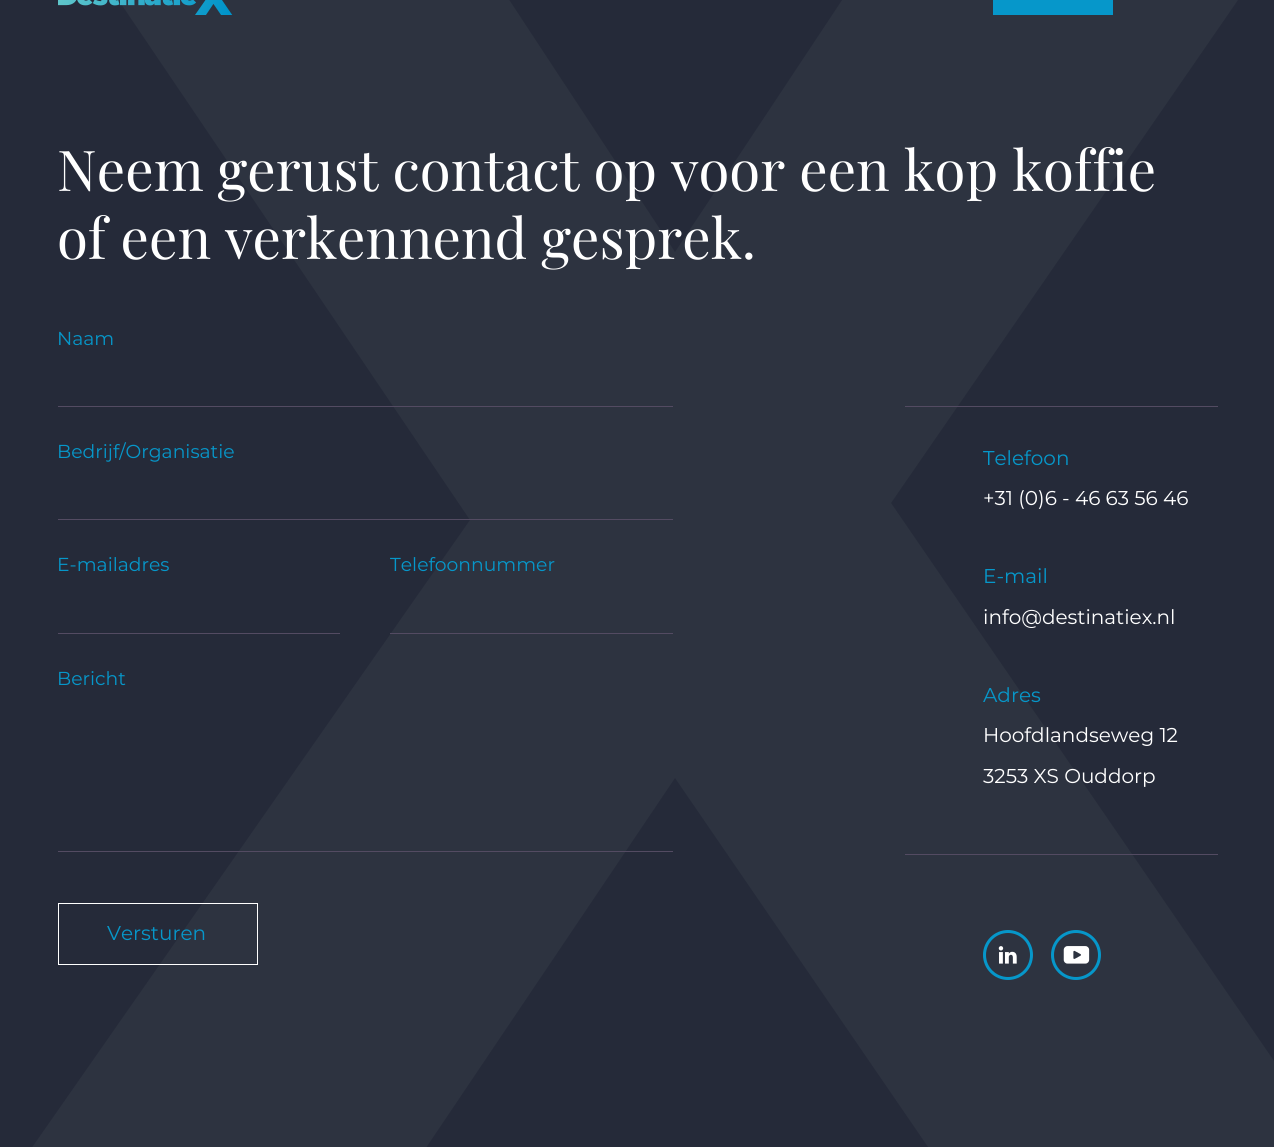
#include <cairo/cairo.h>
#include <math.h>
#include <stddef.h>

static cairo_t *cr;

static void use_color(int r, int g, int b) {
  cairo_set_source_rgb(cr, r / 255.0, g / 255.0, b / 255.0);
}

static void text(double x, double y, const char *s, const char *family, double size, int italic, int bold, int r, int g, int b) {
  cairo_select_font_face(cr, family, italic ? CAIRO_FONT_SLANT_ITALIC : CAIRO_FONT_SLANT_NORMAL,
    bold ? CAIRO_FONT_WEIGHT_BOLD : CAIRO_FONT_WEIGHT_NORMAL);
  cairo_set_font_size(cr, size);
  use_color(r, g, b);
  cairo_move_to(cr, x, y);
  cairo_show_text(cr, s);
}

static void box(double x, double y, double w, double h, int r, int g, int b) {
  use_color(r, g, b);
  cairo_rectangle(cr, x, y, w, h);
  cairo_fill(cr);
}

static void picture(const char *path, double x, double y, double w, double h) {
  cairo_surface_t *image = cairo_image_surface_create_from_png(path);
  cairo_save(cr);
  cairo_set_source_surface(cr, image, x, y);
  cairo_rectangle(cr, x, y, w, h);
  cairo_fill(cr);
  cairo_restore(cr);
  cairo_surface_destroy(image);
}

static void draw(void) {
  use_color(37, 42, 57);
  cairo_paint(cr);
  use_color(45, 51, 64);
  cairo_new_path(cr);
  cairo_move_to(cr, 433, -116);
  cairo_line_to(cr, 675, 252);
  cairo_line_to(cr, 919, -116);
  cairo_line_to(cr, 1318, -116);
  cairo_line_to(cr, 891, 503);
  cairo_line_to(cr, 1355, 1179);
  cairo_line_to(cr, 950, 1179);
  cairo_line_to(cr, 675, 778);
  cairo_line_to(cr, 405, 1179);
  cairo_line_to(cr, 10, 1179);
  cairo_line_to(cr, 470, 520);
  cairo_line_to(cr, 40, -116);
  cairo_close_path(cr);
  cairo_fill(cr);
  picture("img_01.png", 58, 0, 175, 15);
  box(993, 0, 120, 15, 6, 151, 202);
  box(58, 406, 615, 1, 83, 75, 98);
  box(58, 519, 615, 1, 83, 75, 98);
  box(58, 633, 282, 1, 83, 75, 98);
  box(390, 633, 283, 1, 83, 75, 98);
  box(58, 851, 615, 1, 83, 75, 98);
  cairo_rectangle(cr, 58.5, 903.5, 199, 61);
  use_color(255, 255, 255);
  cairo_set_line_width(cr, 1);
  cairo_stroke(cr);
  box(905, 406, 313, 1, 83, 75, 98);
  box(905, 854, 313, 1, 83, 75, 98);
  cairo_arc(cr, 1008, 955, 23.5, 0, 2 * M_PI);
  use_color(6, 151, 202);
  cairo_set_line_width(cr, 3);
  cairo_stroke(cr);
  picture("img_02.png", 998, 946, 19, 18);
  cairo_arc(cr, 1076, 955, 23.5, 0, 2 * M_PI);
  cairo_stroke(cr);
  picture("img_03.png", 1063, 946, 27, 18);
  text(57, 191, "Neem gerust contact op voor een kop koffie", "Playfair Display", 56.25, 0, 0, 255, 255, 255);
  text(57, 259, "of een verkennend gesprek.", "Playfair Display", 56.25, 0, 0, 255, 255, 255);
  text(57, 345, "Naam", "Montserrat", 18.75, 0, 0, 6, 151, 202);
  text(57, 458, "Bedrijf/Organisatie", "Montserrat", 18.75, 0, 0, 6, 151, 202);
  text(57, 571, "E-mailadres", "Montserrat", 18.75, 0, 0, 6, 151, 202);
  text(390, 571, "Telefoonnummer", "Montserrat", 18.75, 0, 0, 6, 151, 202);
  text(57, 685, "Bericht", "Montserrat", 18.75, 0, 0, 6, 151, 202);
  text(107, 940, "Versturen", "Montserrat", 20, 0, 0, 6, 151, 202);
  text(983, 465, "Telefoon", "Montserrat", 20, 0, 0, 6, 151, 202);
  text(983, 505, "+31 (0)6 - 46 63 56 46", "Montserrat", 20, 0, 0, 255, 255, 255);
  text(983, 583, "E-mail", "Montserrat", 20, 0, 0, 6, 151, 202);
  text(983, 624, "info@destinatiex.nl", "Montserrat", 20, 0, 0, 255, 255, 255);
  text(983, 702, "Adres", "Montserrat", 20, 0, 0, 6, 151, 202);
  text(983, 742, "Hoofdlandseweg 12", "Montserrat", 20, 0, 0, 255, 255, 255);
  text(983, 783, "3253 XS Ouddorp", "Montserrat", 20, 0, 0, 255, 255, 255);
}

int main(void) {
  cairo_surface_t *surface = cairo_image_surface_create(CAIRO_FORMAT_RGB24, 1274, 1147);
  cr = cairo_create(surface);
  cairo_font_options_t *options = cairo_font_options_create();
  cairo_font_options_set_hint_metrics(options, CAIRO_HINT_METRICS_OFF);
  cairo_font_options_set_hint_style(options, CAIRO_HINT_STYLE_NONE);
  cairo_set_font_options(cr, options);
  cairo_set_miter_limit(cr, 4);
  draw();
  cairo_surface_write_to_png(surface, "out.png");
  cairo_font_options_destroy(options);
  cairo_destroy(cr);
  cairo_surface_destroy(surface);
  return 0;
}
